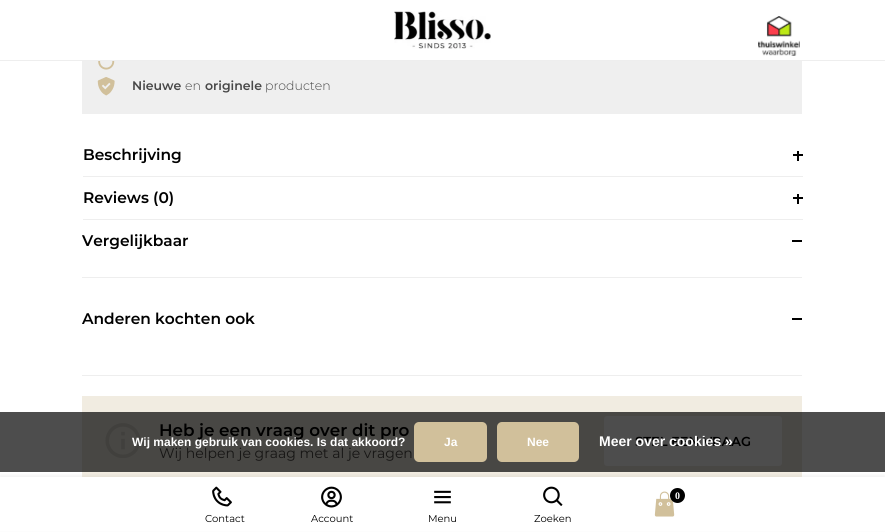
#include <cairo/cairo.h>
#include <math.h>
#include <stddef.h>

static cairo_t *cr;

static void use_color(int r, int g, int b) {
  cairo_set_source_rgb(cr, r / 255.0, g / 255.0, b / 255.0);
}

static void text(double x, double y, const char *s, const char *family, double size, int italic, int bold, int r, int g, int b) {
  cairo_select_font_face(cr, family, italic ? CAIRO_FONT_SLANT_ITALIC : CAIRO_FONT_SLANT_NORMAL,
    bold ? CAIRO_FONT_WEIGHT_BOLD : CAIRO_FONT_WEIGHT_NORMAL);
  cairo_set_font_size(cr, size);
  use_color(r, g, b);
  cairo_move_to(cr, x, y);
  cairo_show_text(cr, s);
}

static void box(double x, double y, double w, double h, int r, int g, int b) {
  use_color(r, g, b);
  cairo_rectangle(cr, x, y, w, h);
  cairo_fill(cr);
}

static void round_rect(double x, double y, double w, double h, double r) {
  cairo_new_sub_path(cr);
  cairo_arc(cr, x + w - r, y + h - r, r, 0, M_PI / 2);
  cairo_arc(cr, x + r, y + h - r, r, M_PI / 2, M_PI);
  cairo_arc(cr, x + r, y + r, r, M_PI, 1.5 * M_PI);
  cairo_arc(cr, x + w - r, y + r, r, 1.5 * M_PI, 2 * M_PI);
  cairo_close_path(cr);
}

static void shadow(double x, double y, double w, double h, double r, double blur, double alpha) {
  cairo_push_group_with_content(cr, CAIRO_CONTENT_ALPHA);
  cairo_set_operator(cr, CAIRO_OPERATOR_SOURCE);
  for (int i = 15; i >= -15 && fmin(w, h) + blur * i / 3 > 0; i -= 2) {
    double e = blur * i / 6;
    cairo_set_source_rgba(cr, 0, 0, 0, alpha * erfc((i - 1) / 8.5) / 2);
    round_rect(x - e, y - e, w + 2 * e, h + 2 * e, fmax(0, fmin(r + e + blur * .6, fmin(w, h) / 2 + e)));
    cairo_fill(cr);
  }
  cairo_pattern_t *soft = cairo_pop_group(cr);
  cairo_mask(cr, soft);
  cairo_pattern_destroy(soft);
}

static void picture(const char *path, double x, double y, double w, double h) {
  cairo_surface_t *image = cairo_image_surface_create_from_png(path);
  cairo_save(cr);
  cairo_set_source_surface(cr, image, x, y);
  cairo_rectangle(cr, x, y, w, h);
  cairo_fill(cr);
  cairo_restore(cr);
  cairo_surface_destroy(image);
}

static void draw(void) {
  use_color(255, 255, 255);
  cairo_paint(cr);
  box(0, 412, 885, 60, 77, 77, 77);
  box(0, 60, 885, 1, 238, 238, 238);
  picture("img_01.png", 394, 11, 97, 38);
  picture("img_02.png", 758, 16, 42, 40);
  box(82, 61, 720, 53, 239, 239, 239);
  picture("img_03.png", 98, 61, 17, 9);
  picture("img_04.png", 97, 77, 18, 19);
  box(83, 176, 720, 1, 238, 238, 238);
  box(793, 154, 10, 2, 0, 0, 0);
  box(797, 151, 2, 10, 0, 0, 0);
  box(83, 219, 720, 1, 238, 238, 238);
  box(793, 197, 10, 2, 0, 0, 0);
  box(797, 194, 2, 10, 0, 0, 0);
  box(82, 277, 720, 1, 238, 238, 238);
  box(792, 240, 10, 2, 0, 0, 0);
  box(82, 375, 720, 1, 238, 238, 238);
  box(792, 318, 10, 2, 0, 0, 0);
  box(82, 396, 720, 81, 241, 236, 225);
  box(82, 412, 720, 60, 72, 71, 68);
  picture("img_05.png", 105, 423, 36, 35);
  use_color(77, 77, 77);
  round_rect(604, 416, 178, 50, 3);
  cairo_fill(cr);
  use_color(209, 192, 155);
  round_rect(414, 422, 73, 40, 5);
  cairo_fill(cr);
  round_rect(497, 422, 82, 40, 5);
  cairo_fill(cr);
  use_color(0, 0, 0);
  shadow(0, 475, 885, 55, 0, 1.5, 0.05);
  box(0, 477, 885, 54, 255, 255, 255);
  picture("img_06.png", 654, 491, 21, 26);
  use_color(0, 0, 0);
  cairo_arc(cr, 677.5, 495.5, 7.5, 0, 2 * M_PI);
  cairo_fill(cr);
  picture("img_07.png", 212, 486, 20, 21);
  picture("img_08.png", 321, 486, 21, 22);
  picture("img_09.png", 434, 490, 17, 14);
  picture("img_10.png", 543, 486, 20, 20);
  text(132, 90, "Nieuwe", "Montserrat SemiBold", 12.5, 0, 0, 72, 72, 72);
  text(185, 90, "en", "Montserrat Light", 12.5, 0, 0, 72, 72, 72);
  text(205, 90, "originele", "Montserrat SemiBold", 12.5, 0, 0, 72, 72, 72);
  text(265, 90, "producten", "Montserrat Light", 12.5, 0, 0, 72, 72, 72);
  text(83, 160, "Beschrijving", "Montserrat SemiBold", 15.4, 0, 0, 0, 0, 0);
  text(83, 203, "Reviews (0)", "Montserrat SemiBold", 15.4, 0, 0, 0, 0, 0);
  text(82, 246, "Vergelijkbaar", "Montserrat SemiBold", 15.4, 0, 0, 0, 0, 0);
  text(82, 324, "Anderen kochten ook", "Montserrat SemiBold", 15.4, 0, 0, 0, 0, 0);
  text(159, 436, "Heb je een vraag over dit pro", "Montserrat SemiBold", 16.75, 0, 0, 0, 0, 0);
  text(159, 458, "Wij helpen je graag met al je vragen", "Montserrat", 14, 0, 0, 22, 21, 20);
  text(635, 446, "STEL EEN VRAAG", "Montserrat SemiBold", 13, 0, 0, 0, 0, 0);
  text(132, 446, "Wij maken gebruik van cookies. Is dat akkoord?", "Liberation Sans", 12, 0, 1, 255, 255, 255);
  text(444, 446, "Ja", "Liberation Sans", 12, 0, 1, 255, 255, 255);
  text(527, 446, "Nee", "Liberation Sans", 12, 0, 1, 255, 255, 255);
  text(599, 446, "Meer over cookies »", "Liberation Sans", 14, 0, 1, 255, 255, 255);
  text(675, 499, "0", "Liberation Serif", 10, 0, 1, 255, 255, 255);
  text(205, 522, "Contact", "Montserrat", 10, 0, 0, 0, 0, 0);
  text(311, 522, "Account", "Montserrat", 10, 0, 0, 0, 0, 0);
  text(428, 522, "Menu", "Montserrat", 10, 0, 0, 0, 0, 0);
  text(534, 522, "Zoeken", "Montserrat", 10, 0, 0, 0, 0, 0);
}

int main(void) {
  cairo_surface_t *surface = cairo_image_surface_create(CAIRO_FORMAT_RGB24, 885, 532);
  cr = cairo_create(surface);
  cairo_font_options_t *options = cairo_font_options_create();
  cairo_font_options_set_hint_metrics(options, CAIRO_HINT_METRICS_OFF);
  cairo_font_options_set_hint_style(options, CAIRO_HINT_STYLE_NONE);
  cairo_set_font_options(cr, options);
  cairo_set_miter_limit(cr, 4);
  draw();
  cairo_surface_write_to_png(surface, "out.png");
  cairo_font_options_destroy(options);
  cairo_destroy(cr);
  cairo_surface_destroy(surface);
  return 0;
}
